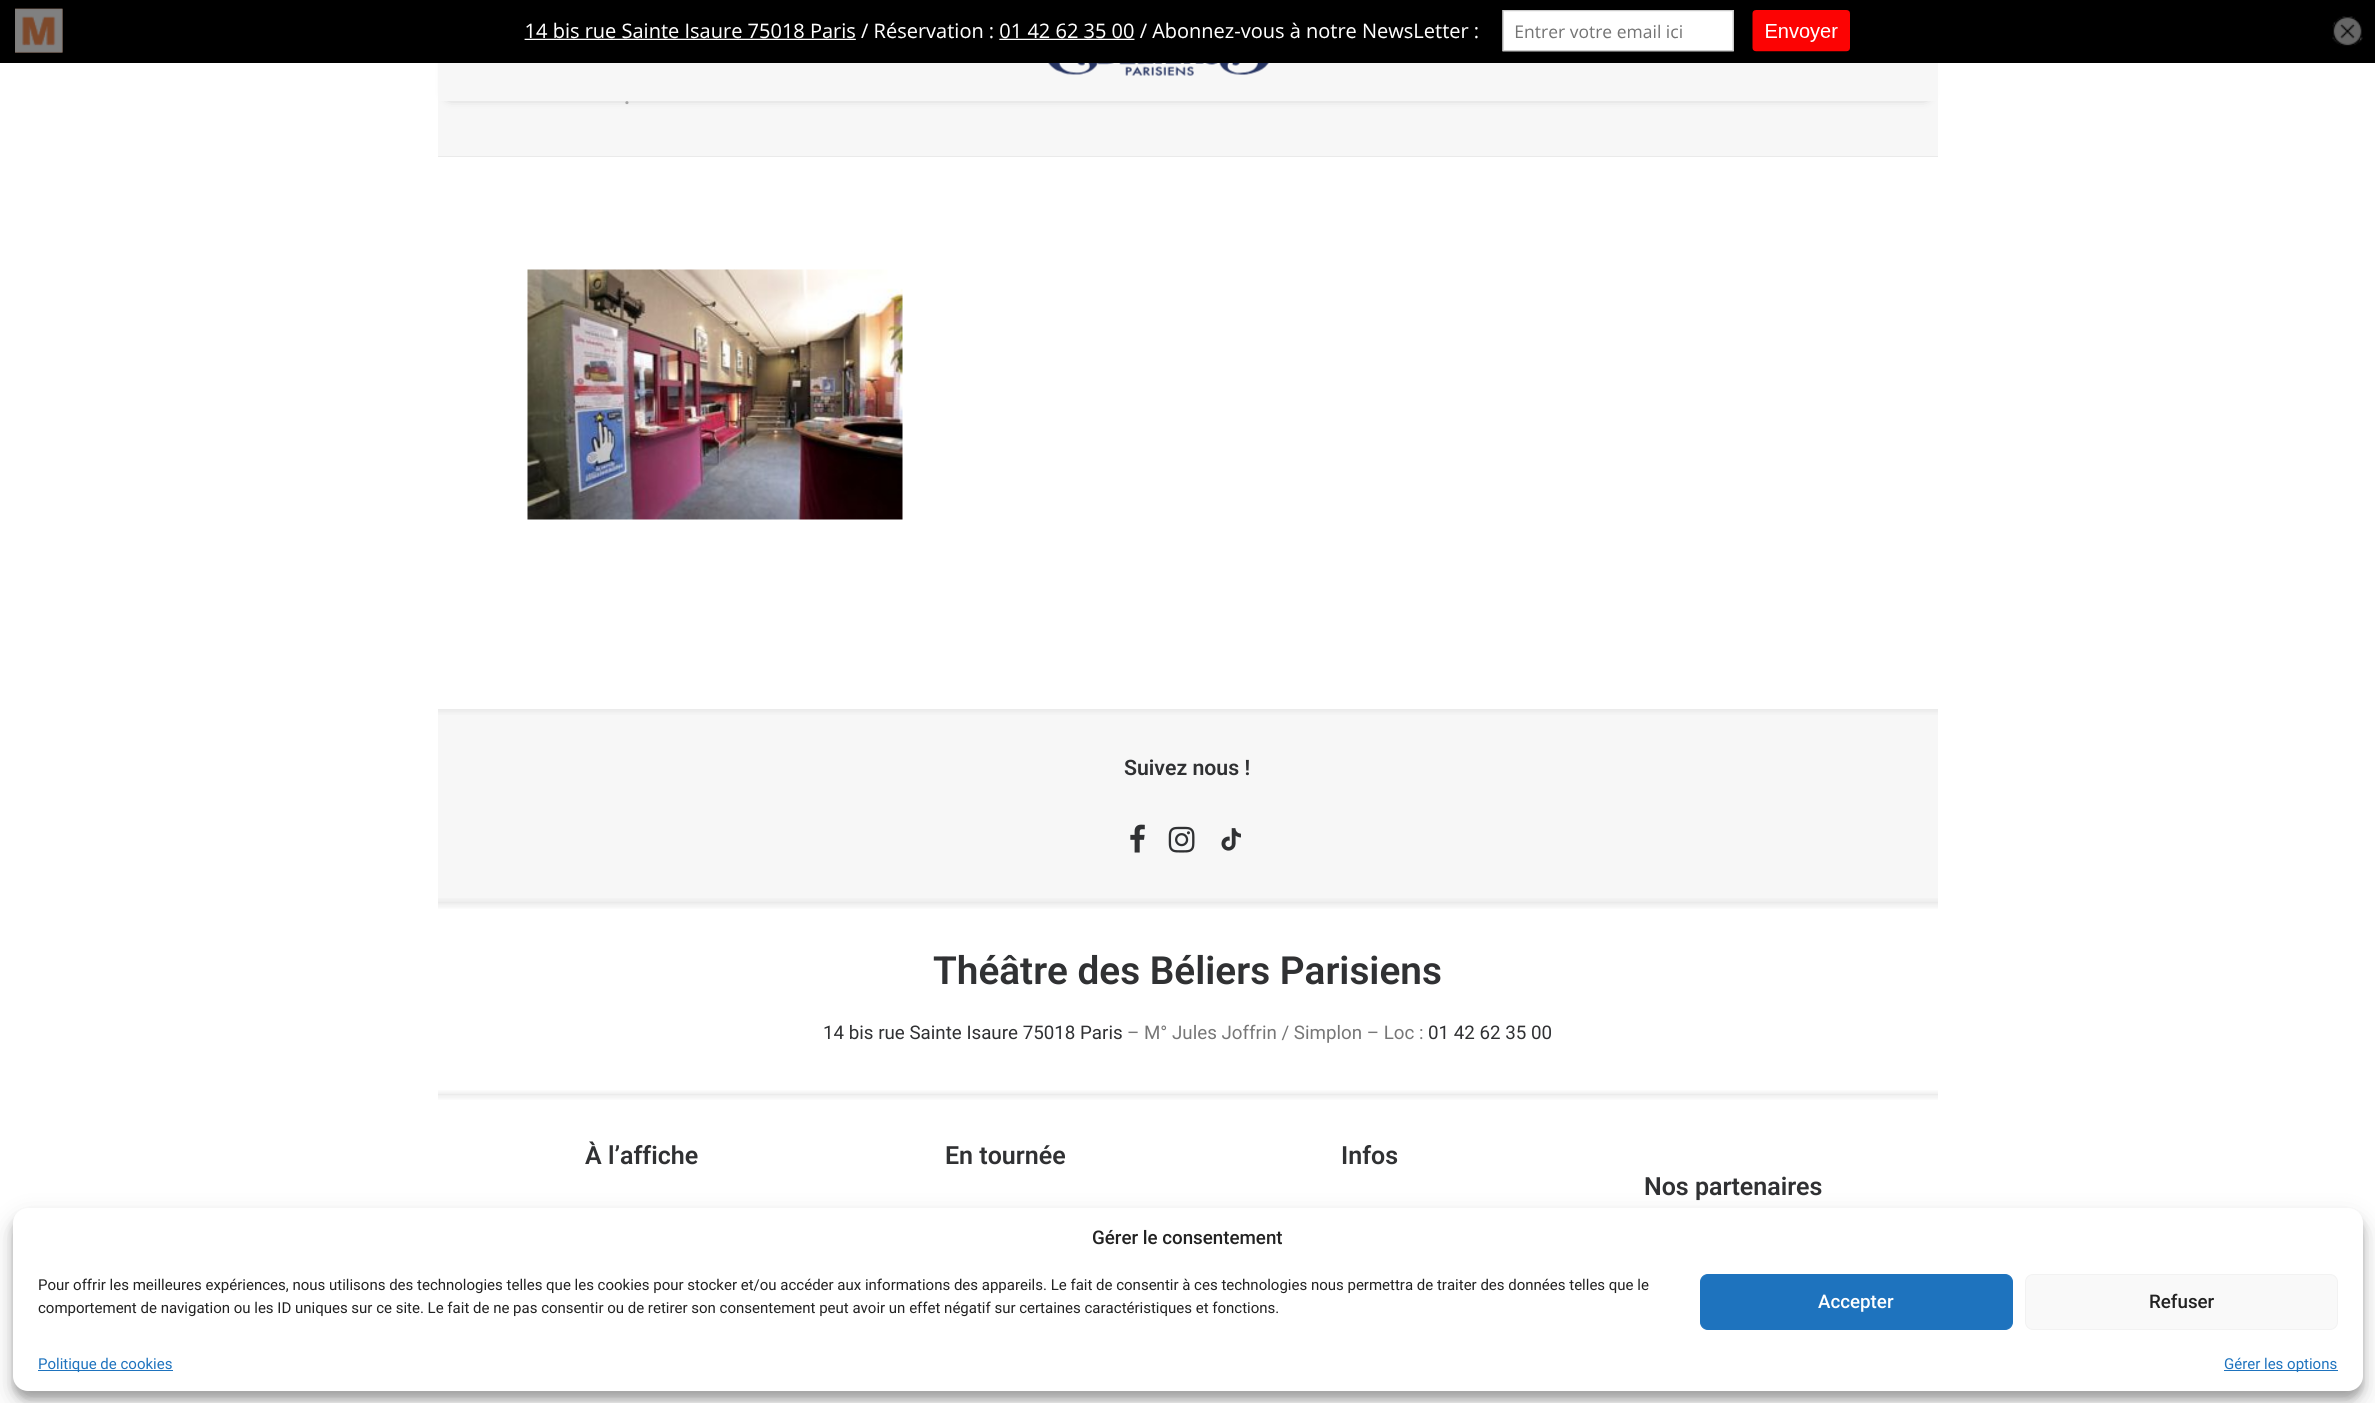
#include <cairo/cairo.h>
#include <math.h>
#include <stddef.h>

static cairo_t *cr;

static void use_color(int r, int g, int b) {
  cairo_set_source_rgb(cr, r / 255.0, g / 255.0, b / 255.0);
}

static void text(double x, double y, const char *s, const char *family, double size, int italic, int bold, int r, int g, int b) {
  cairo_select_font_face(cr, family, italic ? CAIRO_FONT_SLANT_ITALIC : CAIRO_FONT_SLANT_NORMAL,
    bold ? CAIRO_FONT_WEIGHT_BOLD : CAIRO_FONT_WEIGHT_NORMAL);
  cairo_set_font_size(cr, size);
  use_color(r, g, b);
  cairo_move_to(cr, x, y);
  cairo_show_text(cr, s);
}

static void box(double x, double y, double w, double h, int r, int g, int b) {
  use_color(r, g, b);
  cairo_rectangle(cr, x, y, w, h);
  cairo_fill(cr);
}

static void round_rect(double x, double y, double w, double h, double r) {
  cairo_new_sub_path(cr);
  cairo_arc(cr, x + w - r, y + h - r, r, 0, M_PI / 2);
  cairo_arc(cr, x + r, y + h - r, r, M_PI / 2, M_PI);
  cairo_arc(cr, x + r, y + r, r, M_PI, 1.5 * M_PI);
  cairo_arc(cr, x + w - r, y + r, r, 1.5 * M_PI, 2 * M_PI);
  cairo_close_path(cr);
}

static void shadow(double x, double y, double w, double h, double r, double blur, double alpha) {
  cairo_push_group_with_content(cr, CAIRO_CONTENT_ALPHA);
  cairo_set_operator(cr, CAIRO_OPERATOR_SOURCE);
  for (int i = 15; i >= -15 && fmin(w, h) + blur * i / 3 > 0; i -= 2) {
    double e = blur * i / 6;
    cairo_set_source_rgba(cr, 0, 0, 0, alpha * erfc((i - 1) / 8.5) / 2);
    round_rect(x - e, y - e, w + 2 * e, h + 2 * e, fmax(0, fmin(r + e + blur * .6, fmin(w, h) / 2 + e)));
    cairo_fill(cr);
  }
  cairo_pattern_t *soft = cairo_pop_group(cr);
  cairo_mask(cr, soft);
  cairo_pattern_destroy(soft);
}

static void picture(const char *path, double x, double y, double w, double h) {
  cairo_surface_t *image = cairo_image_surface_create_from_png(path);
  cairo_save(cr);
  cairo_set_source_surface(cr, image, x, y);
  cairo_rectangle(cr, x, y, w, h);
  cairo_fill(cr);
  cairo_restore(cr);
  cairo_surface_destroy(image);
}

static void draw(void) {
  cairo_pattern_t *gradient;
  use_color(255, 255, 255);
  cairo_paint(cr);
  box(438, 101, 1500, 55, 247, 247, 247);
  use_color(0, 0, 0);
  shadow(450, 18, 1475, 76, 0, 6, 0.6);
  picture("img_01.png", 0, 0, 2375, 63);
  box(438, 63, 1500, 38, 247, 247, 247);
  picture("img_02.png", 1048, 63, 221, 13);
  box(438, 156, 1500, 1, 234, 234, 234);
  picture("img_03.png", 527, 269, 376, 251);
  box(438, 710, 1500, 193, 247, 247, 247);
  gradient = cairo_pattern_create_linear(1188, 716, 1188, 709);
  cairo_pattern_add_color_stop_rgba(gradient, 0, 0.918, 0.918, 0.918, 0);
  cairo_pattern_add_color_stop_rgba(gradient, 1, 0.918, 0.918, 0.918, 1);
  cairo_set_source(cr, gradient);
  cairo_pattern_destroy(gradient);
  cairo_rectangle(cr, 438, 709, 1500, 6);
  cairo_fill(cr);
  picture("img_04.png", 1130, 824, 15, 29);
  picture("img_05.png", 1168, 826, 27, 27);
  picture("img_06.png", 1221, 828, 20, 23);
  gradient = cairo_pattern_create_linear(1187, 896, 1187, 904);
  cairo_pattern_add_color_stop_rgba(gradient, 0, 0.918, 0.918, 0.918, 0);
  cairo_pattern_add_color_stop_rgba(gradient, 1, 0.918, 0.918, 0.918, 1);
  cairo_set_source(cr, gradient);
  cairo_pattern_destroy(gradient);
  cairo_rectangle(cr, 438, 898, 1500, 5);
  cairo_fill(cr);
  gradient = cairo_pattern_create_linear(1188, 910, 1188, 902);
  cairo_pattern_add_color_stop_rgba(gradient, 0, 0.918, 0.918, 0.918, 0);
  cairo_pattern_add_color_stop_rgba(gradient, 1, 0.918, 0.918, 0.918, 1);
  cairo_set_source(cr, gradient);
  cairo_pattern_destroy(gradient);
  cairo_rectangle(cr, 438, 902, 1500, 7);
  cairo_fill(cr);
  gradient = cairo_pattern_create_linear(1187, 1089, 1187, 1096);
  cairo_pattern_add_color_stop_rgba(gradient, 0, 1, 1, 1, 1);
  cairo_pattern_add_color_stop_rgba(gradient, 1, 0.918, 0.918, 0.918, 1);
  cairo_set_source(cr, gradient);
  cairo_pattern_destroy(gradient);
  cairo_rectangle(cr, 438, 1090, 1500, 5);
  cairo_fill(cr);
  gradient = cairo_pattern_create_linear(1188, 1101, 1188, 1093);
  cairo_pattern_add_color_stop_rgba(gradient, 0, 0.918, 0.918, 0.918, 0);
  cairo_pattern_add_color_stop_rgba(gradient, 1, 0.918, 0.918, 0.918, 1);
  cairo_set_source(cr, gradient);
  cairo_pattern_destroy(gradient);
  cairo_rectangle(cr, 438, 1094, 1500, 6);
  cairo_fill(cr);
  use_color(0, 0, 0);
  shadow(13, 1215, 2350, 184, 15, 4, 0.23);
  shadow(13, 1220, 2350, 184, 15, 12.5, 0.19);
  use_color(255, 255, 255);
  round_rect(13, 1208, 2350, 183, 15);
  cairo_fill(cr);
  use_color(30, 115, 190);
  round_rect(1700.5, 1274.5, 312, 55, 7.5);
  cairo_fill_preserve(cr);
  cairo_set_line_width(cr, 1);
  cairo_stroke(cr);
  use_color(249, 249, 249);
  round_rect(2025.5, 1274.5, 312, 55, 7.5);
  cairo_fill_preserve(cr);
  use_color(242, 242, 242);
  cairo_stroke(cr);
  box(38, 1370, 135, 1, 30, 115, 190);
  box(2224, 1370, 114, 1, 30, 115, 190);
  text(624, 104, ".", "Roboto SemiBold", 21.25, 0, 0, 164, 164, 164);
  text(1124, 775, "Suivez nous !", "Roboto SemiBold", 21.25, 0, 0, 48, 49, 51);
  text(933, 984, "Théâtre des Béliers Parisiens", "Roboto SemiBold", 38.75, 0, 0, 48, 49, 51);
  text(823, 1039, "14 bis rue Sainte Isaure 75018 Paris", "Roboto", 18.75, 0, 0, 48, 49, 51);
  text(1127, 1039, "– M° Jules Joffrin / Simplon – Loc :", "Roboto", 18.75, 0, 0, 119, 119, 119);
  text(1428, 1039, "01 42 62 35 00", "Roboto", 18.75, 0, 0, 48, 49, 51);
  text(585, 1164, "À l’affiche", "Roboto SemiBold", 25, 0, 0, 48, 49, 51);
  text(945, 1164, "En tournée", "Roboto SemiBold", 25, 0, 0, 48, 49, 51);
  text(1341, 1164, "Infos", "Roboto SemiBold", 25, 0, 0, 48, 49, 51);
  text(1644, 1195, "Nos partenaires", "Roboto SemiBold", 25, 0, 0, 48, 49, 51);
  text(1092, 1244, "Gérer le consentement", "Roboto Medium", 18.75, 0, 0, 34, 34, 34);
  text(38, 1290, "Pour offrir les meilleures expériences, nous utilisons des technologies telles que les cookies pour stocker et/ou accéder aux informations des appareils. Le fait de consentir à ces technologies nous permettra de traiter des données telles que le", "Roboto", 15, 0, 0, 34, 34, 34);
  text(38, 1313, "comportement de navigation ou les ID uniques sur ce site. Le fait de ne pas consentir ou de retirer son consentement peut avoir un effet négatif sur certaines caractéristiques et fonctions.", "Roboto", 15, 0, 0, 34, 34, 34);
  text(1818, 1308, "Accepter", "Roboto Medium", 18.75, 0, 0, 255, 255, 255);
  text(2149, 1308, "Refuser", "Roboto Medium", 18.75, 0, 0, 34, 34, 34);
  text(38, 1369, "Politique de cookies", "Roboto", 15, 0, 0, 30, 115, 190);
  text(2224, 1369, "Gérer les options", "Roboto", 15, 0, 0, 30, 115, 190);
}

int main(void) {
  cairo_surface_t *surface = cairo_image_surface_create(CAIRO_FORMAT_RGB24, 2375, 1403);
  cr = cairo_create(surface);
  cairo_font_options_t *options = cairo_font_options_create();
  cairo_font_options_set_hint_metrics(options, CAIRO_HINT_METRICS_OFF);
  cairo_font_options_set_hint_style(options, CAIRO_HINT_STYLE_NONE);
  cairo_set_font_options(cr, options);
  cairo_set_miter_limit(cr, 4);
  draw();
  cairo_surface_write_to_png(surface, "out.png");
  cairo_font_options_destroy(options);
  cairo_destroy(cr);
  cairo_surface_destroy(surface);
  return 0;
}
